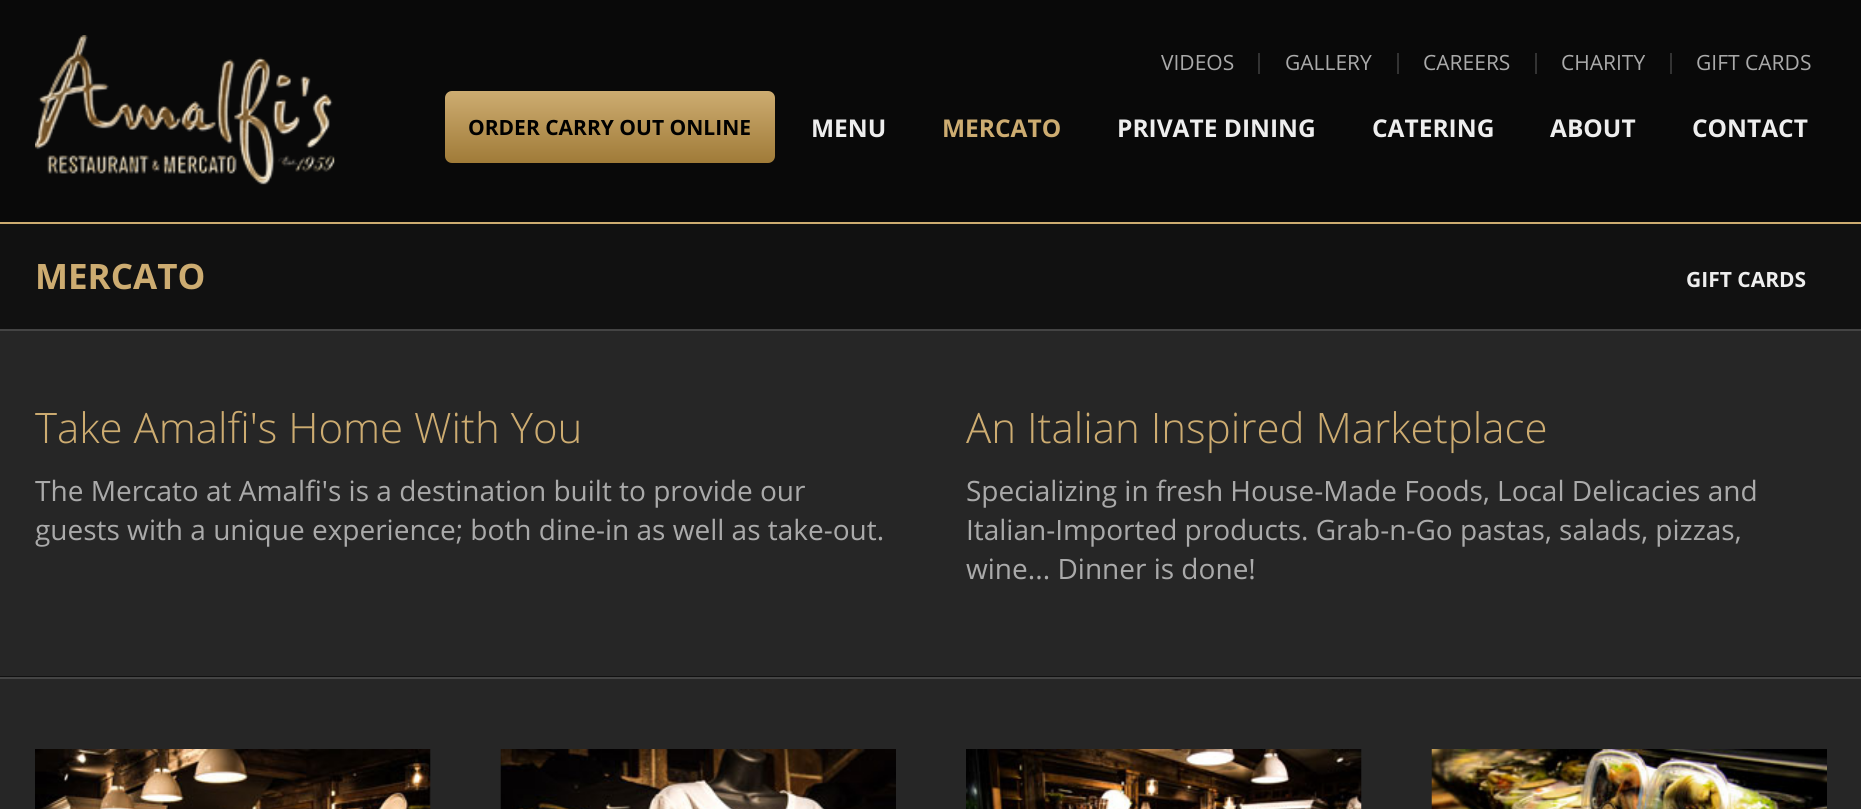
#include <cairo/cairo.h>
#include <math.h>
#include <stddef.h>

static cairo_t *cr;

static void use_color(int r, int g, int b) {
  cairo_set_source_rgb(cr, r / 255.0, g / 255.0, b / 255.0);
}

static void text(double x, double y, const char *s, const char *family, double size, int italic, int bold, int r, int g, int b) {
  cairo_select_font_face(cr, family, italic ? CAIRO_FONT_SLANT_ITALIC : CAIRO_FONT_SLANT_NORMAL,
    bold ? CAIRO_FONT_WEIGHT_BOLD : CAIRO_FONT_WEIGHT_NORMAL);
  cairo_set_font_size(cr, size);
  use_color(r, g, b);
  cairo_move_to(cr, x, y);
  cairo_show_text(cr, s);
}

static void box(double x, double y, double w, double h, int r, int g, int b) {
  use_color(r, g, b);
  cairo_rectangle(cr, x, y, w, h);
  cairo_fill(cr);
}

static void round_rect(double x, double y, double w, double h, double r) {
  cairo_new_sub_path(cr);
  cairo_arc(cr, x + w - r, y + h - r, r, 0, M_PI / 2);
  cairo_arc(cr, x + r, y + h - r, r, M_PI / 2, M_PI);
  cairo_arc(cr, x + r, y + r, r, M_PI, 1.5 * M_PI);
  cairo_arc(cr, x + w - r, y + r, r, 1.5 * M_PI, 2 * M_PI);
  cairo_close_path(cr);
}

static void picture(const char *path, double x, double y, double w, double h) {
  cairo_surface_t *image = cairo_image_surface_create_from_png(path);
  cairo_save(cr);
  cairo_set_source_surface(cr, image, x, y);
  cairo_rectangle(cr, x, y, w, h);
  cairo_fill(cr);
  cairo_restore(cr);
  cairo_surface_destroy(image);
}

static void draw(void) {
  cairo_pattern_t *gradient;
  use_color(38, 38, 38);
  cairo_paint(cr);
  box(0, 0, 1861, 222, 9, 9, 9);
  picture("img_01.png", 35, 35, 300, 150);
  box(1258, 53, 2, 21, 51, 51, 51);
  box(1397, 53, 2, 21, 51, 51, 51);
  box(1535, 53, 2, 21, 51, 51, 51);
  box(1670, 53, 2, 21, 51, 51, 51);
  gradient = cairo_pattern_create_linear(610, 91, 610, 163);
  cairo_pattern_add_color_stop_rgba(gradient, 0, 0.804, 0.675, 0.443, 1);
  cairo_pattern_add_color_stop_rgba(gradient, 1, 0.627, 0.482, 0.22, 1);
  cairo_set_source(cr, gradient);
  cairo_pattern_destroy(gradient);
  round_rect(445, 91, 330, 72, 7);
  cairo_fill(cr);
  box(0, 224, 1861, 105, 17, 17, 17);
  box(0, 222, 1861, 2, 205, 172, 113);
  box(0, 329, 1861, 2, 68, 68, 68);
  box(0, 676, 1861, 1, 17, 17, 17);
  box(0, 677, 1861, 2, 68, 68, 68);
  picture("img_02.png", 35, 749, 396, 60);
  picture("img_03.png", 500, 749, 396, 60);
  picture("img_04.png", 966, 749, 396, 60);
  picture("img_05.png", 1431, 749, 396, 60);
  text(1161, 70, "VIDEOS", "Open Sans", 21, 0, 0, 170, 170, 170);
  text(1285, 70, "GALLERY", "Open Sans", 21, 0, 0, 170, 170, 170);
  text(1423, 70, "CAREERS", "Open Sans", 21, 0, 0, 170, 170, 170);
  text(1561, 70, "CHARITY", "Open Sans", 21, 0, 0, 170, 170, 170);
  text(1696, 70, "GIFT CARDS", "Open Sans", 21, 0, 0, 170, 170, 170);
  text(468, 135, "ORDER CARRY OUT ONLINE", "Open Sans", 21, 0, 1, 0, 0, 0);
  text(811, 137, "MENU", "Open Sans", 24.5, 0, 1, 238, 238, 238);
  text(942, 137, "MERCATO", "Open Sans", 24.5, 0, 1, 205, 172, 113);
  text(1117, 137, "PRIVATE DINING", "Open Sans", 24.5, 0, 1, 238, 238, 238);
  text(1372, 137, "CATERING", "Open Sans", 24.5, 0, 1, 238, 238, 238);
  text(1550, 137, "ABOUT", "Open Sans", 24.5, 0, 1, 238, 238, 238);
  text(1692, 137, "CONTACT", "Open Sans", 24.5, 0, 1, 238, 238, 238);
  text(35, 289, "MERCATO", "Open Sans", 35, 0, 1, 205, 172, 113);
  text(1686, 287, "GIFT CARDS", "Open Sans", 21, 0, 1, 238, 238, 238);
  text(35, 443, "Take Amalfi's Home With You", "Open Sans Light", 42, 0, 0, 205, 172, 113);
  text(35, 501, "The Mercato at Amalfi's is a destination built to provide our", "Open Sans", 28, 0, 0, 170, 170, 170);
  text(35, 540, "guests with a unique experience; both dine-in as well as take-out.", "Open Sans", 28, 0, 0, 170, 170, 170);
  text(966, 443, "An Italian Inspired Marketplace", "Open Sans Light", 42, 0, 0, 205, 172, 113);
  text(966, 501, "Specializing in fresh House-Made Foods, Local Delicacies and", "Open Sans", 28, 0, 0, 170, 170, 170);
  text(966, 540, "Italian-Imported products. Grab-n-Go pastas, salads, pizzas,", "Open Sans", 28, 0, 0, 170, 170, 170);
  text(966, 579, "wine... Dinner is done!", "Open Sans", 28, 0, 0, 170, 170, 170);
}

int main(void) {
  cairo_surface_t *surface = cairo_image_surface_create(CAIRO_FORMAT_RGB24, 1861, 809);
  cr = cairo_create(surface);
  cairo_font_options_t *options = cairo_font_options_create();
  cairo_font_options_set_hint_metrics(options, CAIRO_HINT_METRICS_OFF);
  cairo_font_options_set_hint_style(options, CAIRO_HINT_STYLE_NONE);
  cairo_set_font_options(cr, options);
  cairo_set_miter_limit(cr, 4);
  draw();
  cairo_surface_write_to_png(surface, "out.png");
  cairo_font_options_destroy(options);
  cairo_destroy(cr);
  cairo_surface_destroy(surface);
  return 0;
}
